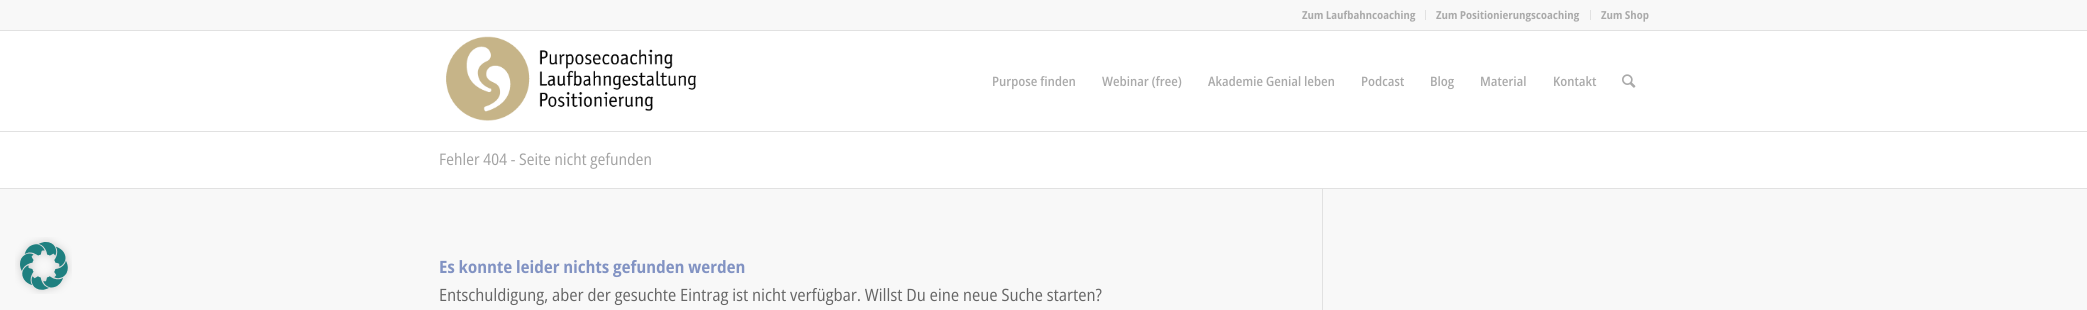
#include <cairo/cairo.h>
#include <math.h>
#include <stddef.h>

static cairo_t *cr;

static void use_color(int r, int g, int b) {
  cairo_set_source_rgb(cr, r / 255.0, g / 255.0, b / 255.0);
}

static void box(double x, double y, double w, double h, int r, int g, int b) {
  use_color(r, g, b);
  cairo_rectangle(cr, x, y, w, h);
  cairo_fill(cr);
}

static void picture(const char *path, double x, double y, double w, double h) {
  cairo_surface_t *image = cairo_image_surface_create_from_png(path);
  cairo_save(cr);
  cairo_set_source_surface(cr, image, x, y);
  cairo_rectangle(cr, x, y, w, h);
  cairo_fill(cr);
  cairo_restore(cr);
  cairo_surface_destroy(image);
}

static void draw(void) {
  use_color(255, 255, 255);
  cairo_paint(cr);
  box(0, 0, 2087, 30, 248, 248, 248);
  box(0, 30, 2087, 1, 225, 225, 225);
  box(1425, 10, 1, 10, 225, 225, 225);
  picture("img_01.png", 1302, 10, 114, 12);
  box(1590, 10, 1, 10, 225, 225, 225);
  picture("img_02.png", 1436, 10, 144, 12);
  picture("img_03.png", 1601, 10, 48, 12);
  box(0, 131, 2087, 1, 225, 225, 225);
  picture("img_04.png", 446, 36, 250, 85);
  picture("img_05.png", 993, 76, 82, 14);
  picture("img_06.png", 1102, 76, 80, 13);
  picture("img_07.png", 1208, 76, 126, 11);
  picture("img_08.png", 1362, 76, 42, 11);
  picture("img_09.png", 1431, 76, 23, 14);
  picture("img_10.png", 1481, 76, 45, 11);
  picture("img_11.png", 1554, 76, 43, 11);
  picture("img_12.png", 1622, 74, 14, 14);
  picture("img_13.png", 440, 152, 211, 17);
  box(0, 189, 2087, 121, 248, 248, 248);
  box(0, 188, 2087, 1, 225, 225, 225);
  box(1322, 189, 1, 121, 225, 225, 225);
  picture("img_14.png", 440, 260, 305, 18);
  picture("img_15.png", 440, 288, 662, 18);
  picture("img_16.png", 15, 237, 57, 57);
}

int main(void) {
  cairo_surface_t *surface = cairo_image_surface_create(CAIRO_FORMAT_RGB24, 2087, 310);
  cr = cairo_create(surface);
  cairo_font_options_t *options = cairo_font_options_create();
  cairo_font_options_set_hint_metrics(options, CAIRO_HINT_METRICS_OFF);
  cairo_font_options_set_hint_style(options, CAIRO_HINT_STYLE_NONE);
  cairo_set_font_options(cr, options);
  cairo_set_miter_limit(cr, 4);
  draw();
  cairo_surface_write_to_png(surface, "out.png");
  cairo_font_options_destroy(options);
  cairo_destroy(cr);
  cairo_surface_destroy(surface);
  return 0;
}
